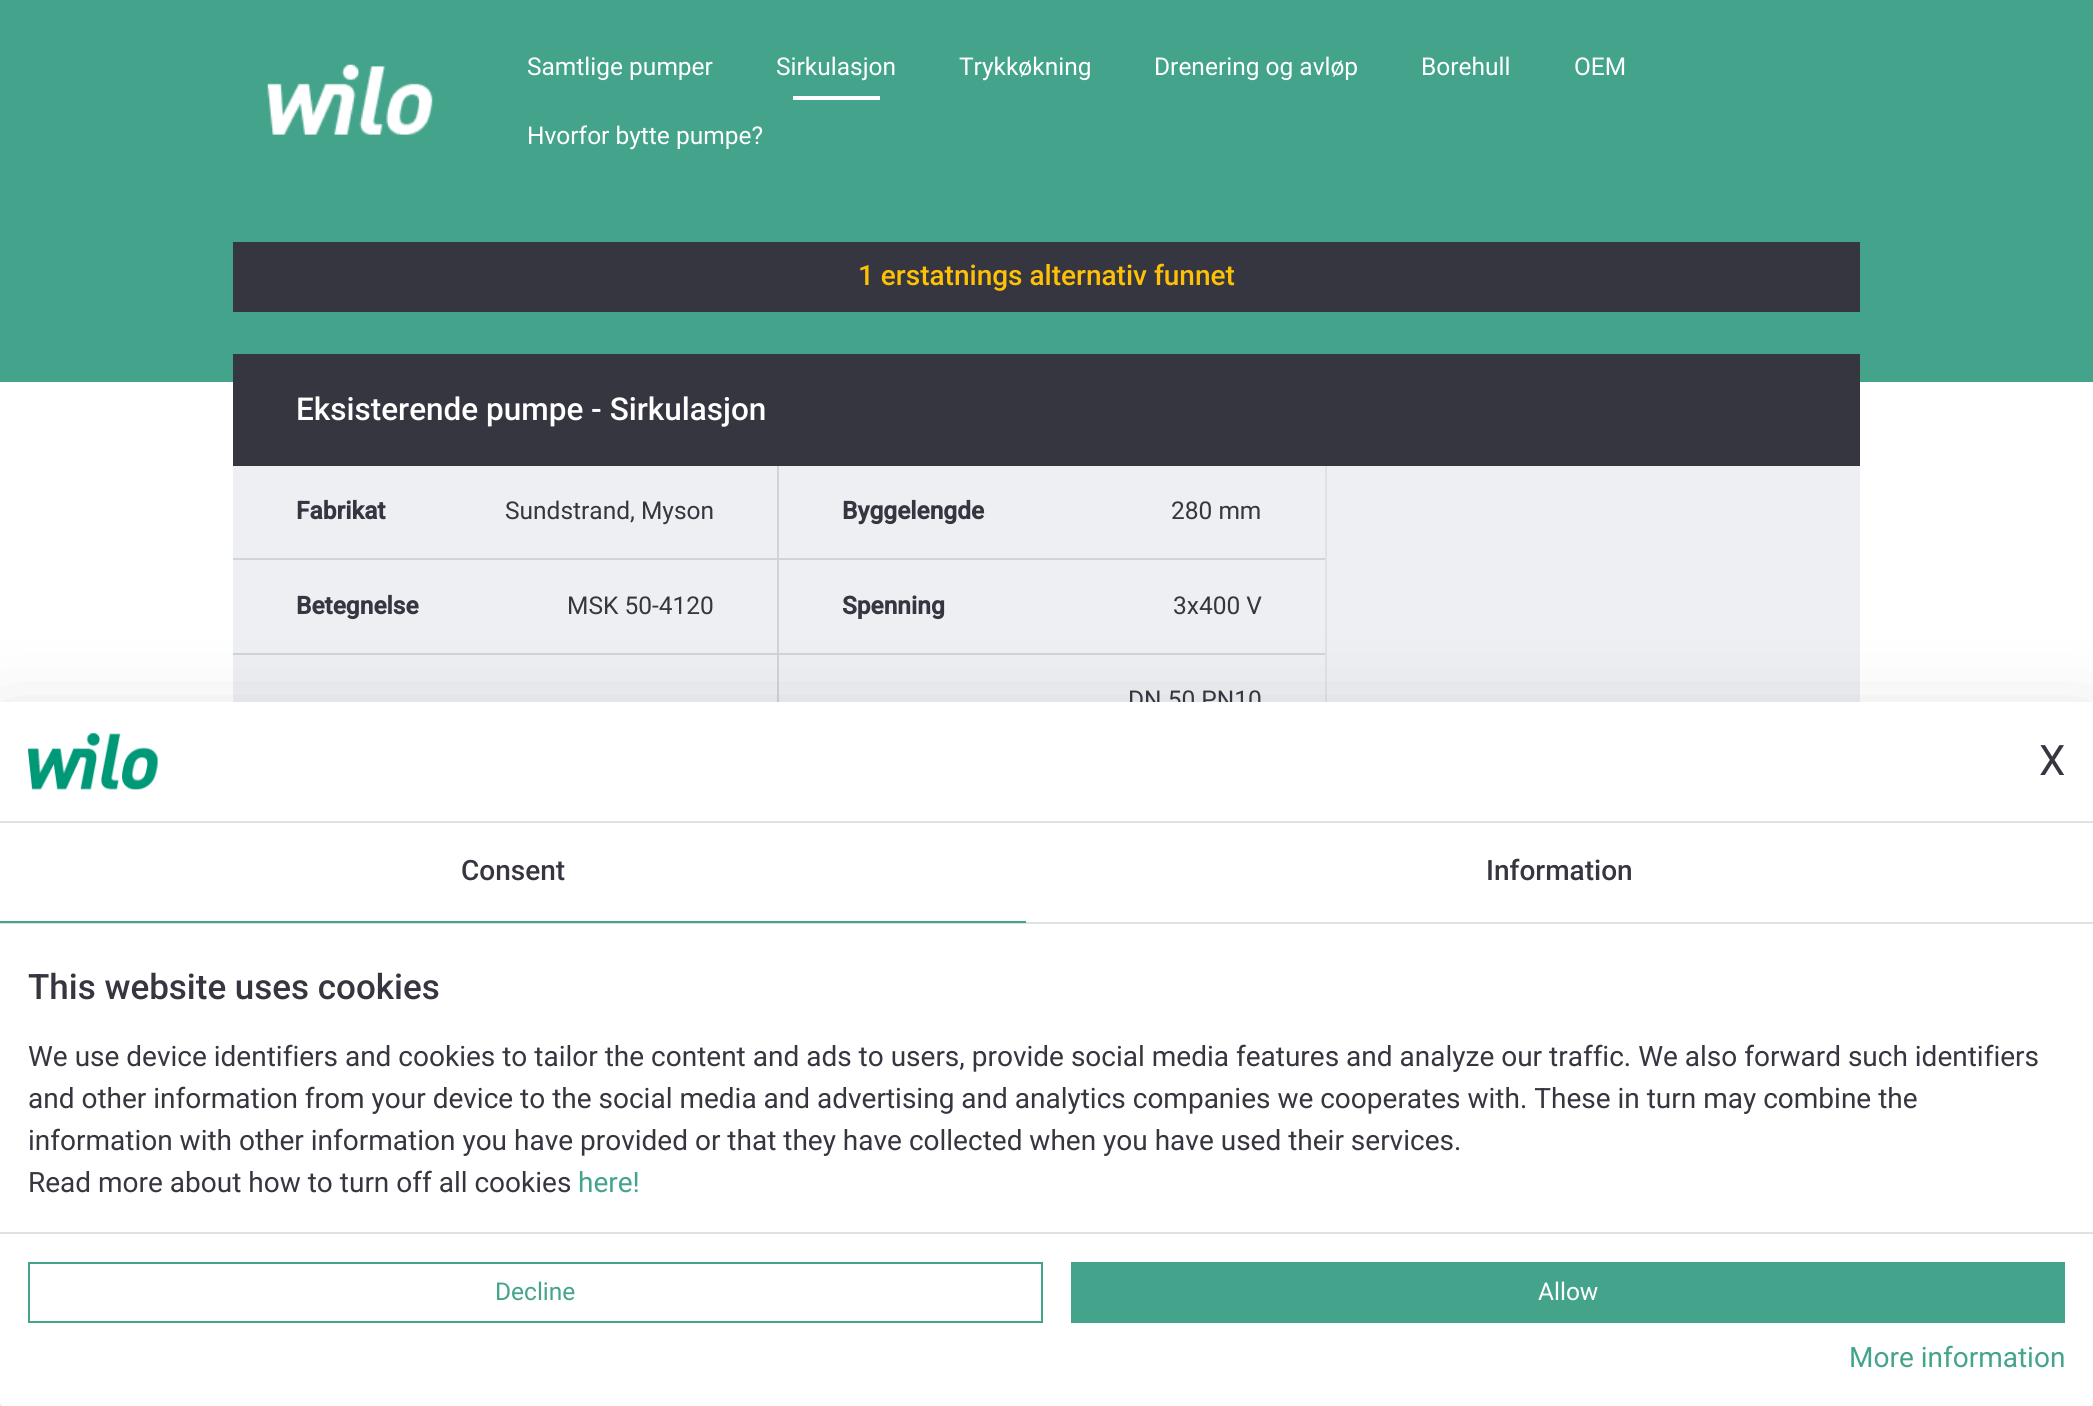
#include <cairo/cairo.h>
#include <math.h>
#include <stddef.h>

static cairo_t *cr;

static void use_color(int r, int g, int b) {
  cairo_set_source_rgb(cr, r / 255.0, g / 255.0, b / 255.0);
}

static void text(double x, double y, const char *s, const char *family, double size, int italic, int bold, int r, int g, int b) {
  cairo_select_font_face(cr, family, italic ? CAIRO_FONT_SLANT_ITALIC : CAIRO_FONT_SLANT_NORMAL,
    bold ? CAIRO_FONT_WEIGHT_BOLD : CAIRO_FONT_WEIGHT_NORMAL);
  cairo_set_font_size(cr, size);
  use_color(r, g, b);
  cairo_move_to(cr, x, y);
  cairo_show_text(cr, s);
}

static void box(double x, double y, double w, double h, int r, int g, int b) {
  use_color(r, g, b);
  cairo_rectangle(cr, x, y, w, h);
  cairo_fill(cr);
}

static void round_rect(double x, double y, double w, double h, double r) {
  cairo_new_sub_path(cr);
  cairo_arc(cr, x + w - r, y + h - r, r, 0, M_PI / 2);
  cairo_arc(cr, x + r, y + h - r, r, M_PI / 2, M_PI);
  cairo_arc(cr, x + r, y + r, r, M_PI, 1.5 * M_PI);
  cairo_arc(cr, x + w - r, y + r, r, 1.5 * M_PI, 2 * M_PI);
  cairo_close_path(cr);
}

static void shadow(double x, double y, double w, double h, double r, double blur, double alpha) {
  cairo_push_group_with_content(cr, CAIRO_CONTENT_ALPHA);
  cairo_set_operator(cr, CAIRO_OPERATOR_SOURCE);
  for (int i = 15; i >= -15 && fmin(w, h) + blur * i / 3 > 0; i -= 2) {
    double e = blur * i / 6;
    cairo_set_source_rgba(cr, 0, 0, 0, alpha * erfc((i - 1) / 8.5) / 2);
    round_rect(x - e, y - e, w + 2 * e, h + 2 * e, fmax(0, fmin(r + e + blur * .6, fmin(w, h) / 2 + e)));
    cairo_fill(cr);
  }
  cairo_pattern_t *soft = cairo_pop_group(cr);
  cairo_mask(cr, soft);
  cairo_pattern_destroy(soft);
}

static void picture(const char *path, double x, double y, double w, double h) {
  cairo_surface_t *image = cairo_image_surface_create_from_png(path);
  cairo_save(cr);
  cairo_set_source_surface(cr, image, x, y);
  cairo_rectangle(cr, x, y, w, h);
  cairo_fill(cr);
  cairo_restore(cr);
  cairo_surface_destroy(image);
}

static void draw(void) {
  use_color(255, 255, 255);
  cairo_paint(cr);
  box(0, 0, 2093, 382, 68, 164, 139);
  picture("img_01.png", 267, 64, 166, 71);
  box(793, 96, 87, 4, 255, 255, 255);
  box(233, 242, 1627, 70, 54, 54, 64);
  box(233, 466, 1627, 236, 237, 239, 242);
  box(233, 354, 1627, 112, 54, 54, 64);
  box(1325, 466, 2, 236, 222, 226, 230);
  box(777, 466, 2, 236, 206, 212, 218);
  box(233, 558, 544, 2, 206, 212, 218);
  box(233, 653, 544, 2, 206, 212, 218);
  box(779, 558, 546, 2, 206, 212, 218);
  box(779, 653, 546, 2, 206, 212, 218);
  use_color(0, 0, 0);
  shadow(0, 730, 2093, 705, 5, 42, 0.18);
  text(527, 75, "Samtlige pumper", "Roboto", 24.5, 0, 0, 255, 255, 255);
  text(776, 75, "Sirkulasjon", "Roboto", 24.5, 0, 0, 255, 255, 255);
  text(959, 75, "Trykkøkning", "Roboto", 24.5, 0, 0, 255, 255, 255);
  text(1154, 75, "Drenering og avløp", "Roboto", 24.5, 0, 0, 255, 255, 255);
  text(1421, 75, "Borehull", "Roboto", 24.5, 0, 0, 255, 255, 255);
  text(1574, 75, "OEM", "Roboto", 24.5, 0, 0, 255, 255, 255);
  text(527, 144, "Hvorfor bytte pumpe?", "Roboto", 24.5, 0, 0, 255, 255, 255);
  text(858, 285, "1 erstatnings alternativ funnet", "Roboto Medium", 28, 0, 0, 255, 193, 7);
  text(296, 420, "Eksisterende pumpe - Sirkulasjon", "Roboto Medium", 31.5, 0, 0, 255, 255, 255);
  text(296, 519, "Fabrikat", "Roboto", 24.5, 0, 1, 54, 54, 64);
  text(505, 519, "Sundstrand, Myson", "Roboto", 24.5, 0, 0, 54, 54, 64);
  text(296, 614, "Betegnelse", "Roboto", 24.5, 0, 1, 54, 54, 64);
  text(567, 614, "MSK 50-4120", "Roboto", 24.5, 0, 0, 54, 54, 64);
  text(842, 519, "Byggelengde", "Roboto", 24.5, 0, 1, 54, 54, 64);
  text(1171, 519, "280 mm", "Roboto", 24.5, 0, 0, 54, 54, 64);
  text(842, 614, "Spenning", "Roboto", 24.5, 0, 1, 54, 54, 64);
  text(1173, 614, "3x400 V", "Roboto", 24.5, 0, 0, 54, 54, 64);
  text(1128, 708, "DN 50 PN10", "Roboto", 24.5, 0, 0, 54, 54, 64);
  use_color(255, 255, 255);
  cairo_new_path(cr);
  cairo_move_to(cr, 0, 702);
  cairo_line_to(cr, 2093, 702);
  cairo_line_to(cr, 2093, 1402);
  cairo_curve_to(cr, 2093, 1405, 2091, 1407, 2088, 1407);
  cairo_line_to(cr, 5, 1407);
  cairo_curve_to(cr, 2, 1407, 0, 1405, 0, 1402);
  cairo_close_path(cr);
  cairo_fill(cr);
  box(0, 821, 2093, 2, 222, 226, 230);
  picture("img_02.png", 28, 733, 130, 57);
  text(2039, 775, "X", "Roboto", 42, 0, 0, 54, 54, 64);
  box(0, 922, 2093, 2, 222, 226, 230);
  box(0, 921, 1026, 2, 68, 164, 139);
  text(461, 880, "Consent", "Roboto Medium", 28, 0, 0, 54, 54, 64);
  text(1486, 880, "Information", "Roboto Medium", 28, 0, 0, 54, 54, 64);
  text(28, 999, "This website uses cookies", "Roboto Medium", 35, 0, 0, 54, 54, 64);
  text(28, 1066, "We use device identifiers and cookies to tailor the content and ads to users, provide social media features and analyze our traffic. We also forward such identifiers", "Roboto", 28, 0, 0, 54, 54, 64);
  text(28, 1108, "and other information from your device to the social media and advertising and analytics companies we cooperates with. These in turn may combine the", "Roboto", 28, 0, 0, 54, 54, 64);
  text(28, 1150, "information with other information you have provided or that they have collected when you have used their services.", "Roboto", 28, 0, 0, 54, 54, 64);
  text(28, 1192, "Read more about how to turn off all cookies", "Roboto", 28, 0, 0, 54, 54, 64);
  text(578, 1192, "here!", "Roboto", 28, 0, 0, 68, 164, 139);
  box(0, 1232, 2093, 2, 222, 226, 230);
  cairo_rectangle(cr, 29, 1263, 1013, 59);
  use_color(68, 164, 139);
  cairo_stroke(cr);
  text(495, 1300, "Decline", "Roboto", 24.5, 0, 0, 68, 164, 139);
  box(1071, 1262, 994, 61, 68, 164, 139);
  text(1538, 1300, "Allow", "Roboto", 24.5, 0, 0, 255, 255, 255);
  text(1849, 1367, "More information", "Roboto", 28, 0, 0, 68, 164, 139);
}

int main(void) {
  cairo_surface_t *surface = cairo_image_surface_create(CAIRO_FORMAT_RGB24, 2093, 1406);
  cr = cairo_create(surface);
  cairo_font_options_t *options = cairo_font_options_create();
  cairo_font_options_set_hint_metrics(options, CAIRO_HINT_METRICS_OFF);
  cairo_font_options_set_hint_style(options, CAIRO_HINT_STYLE_NONE);
  cairo_set_font_options(cr, options);
  cairo_set_miter_limit(cr, 4);
  draw();
  cairo_surface_write_to_png(surface, "out.png");
  cairo_font_options_destroy(options);
  cairo_destroy(cr);
  cairo_surface_destroy(surface);
  return 0;
}
